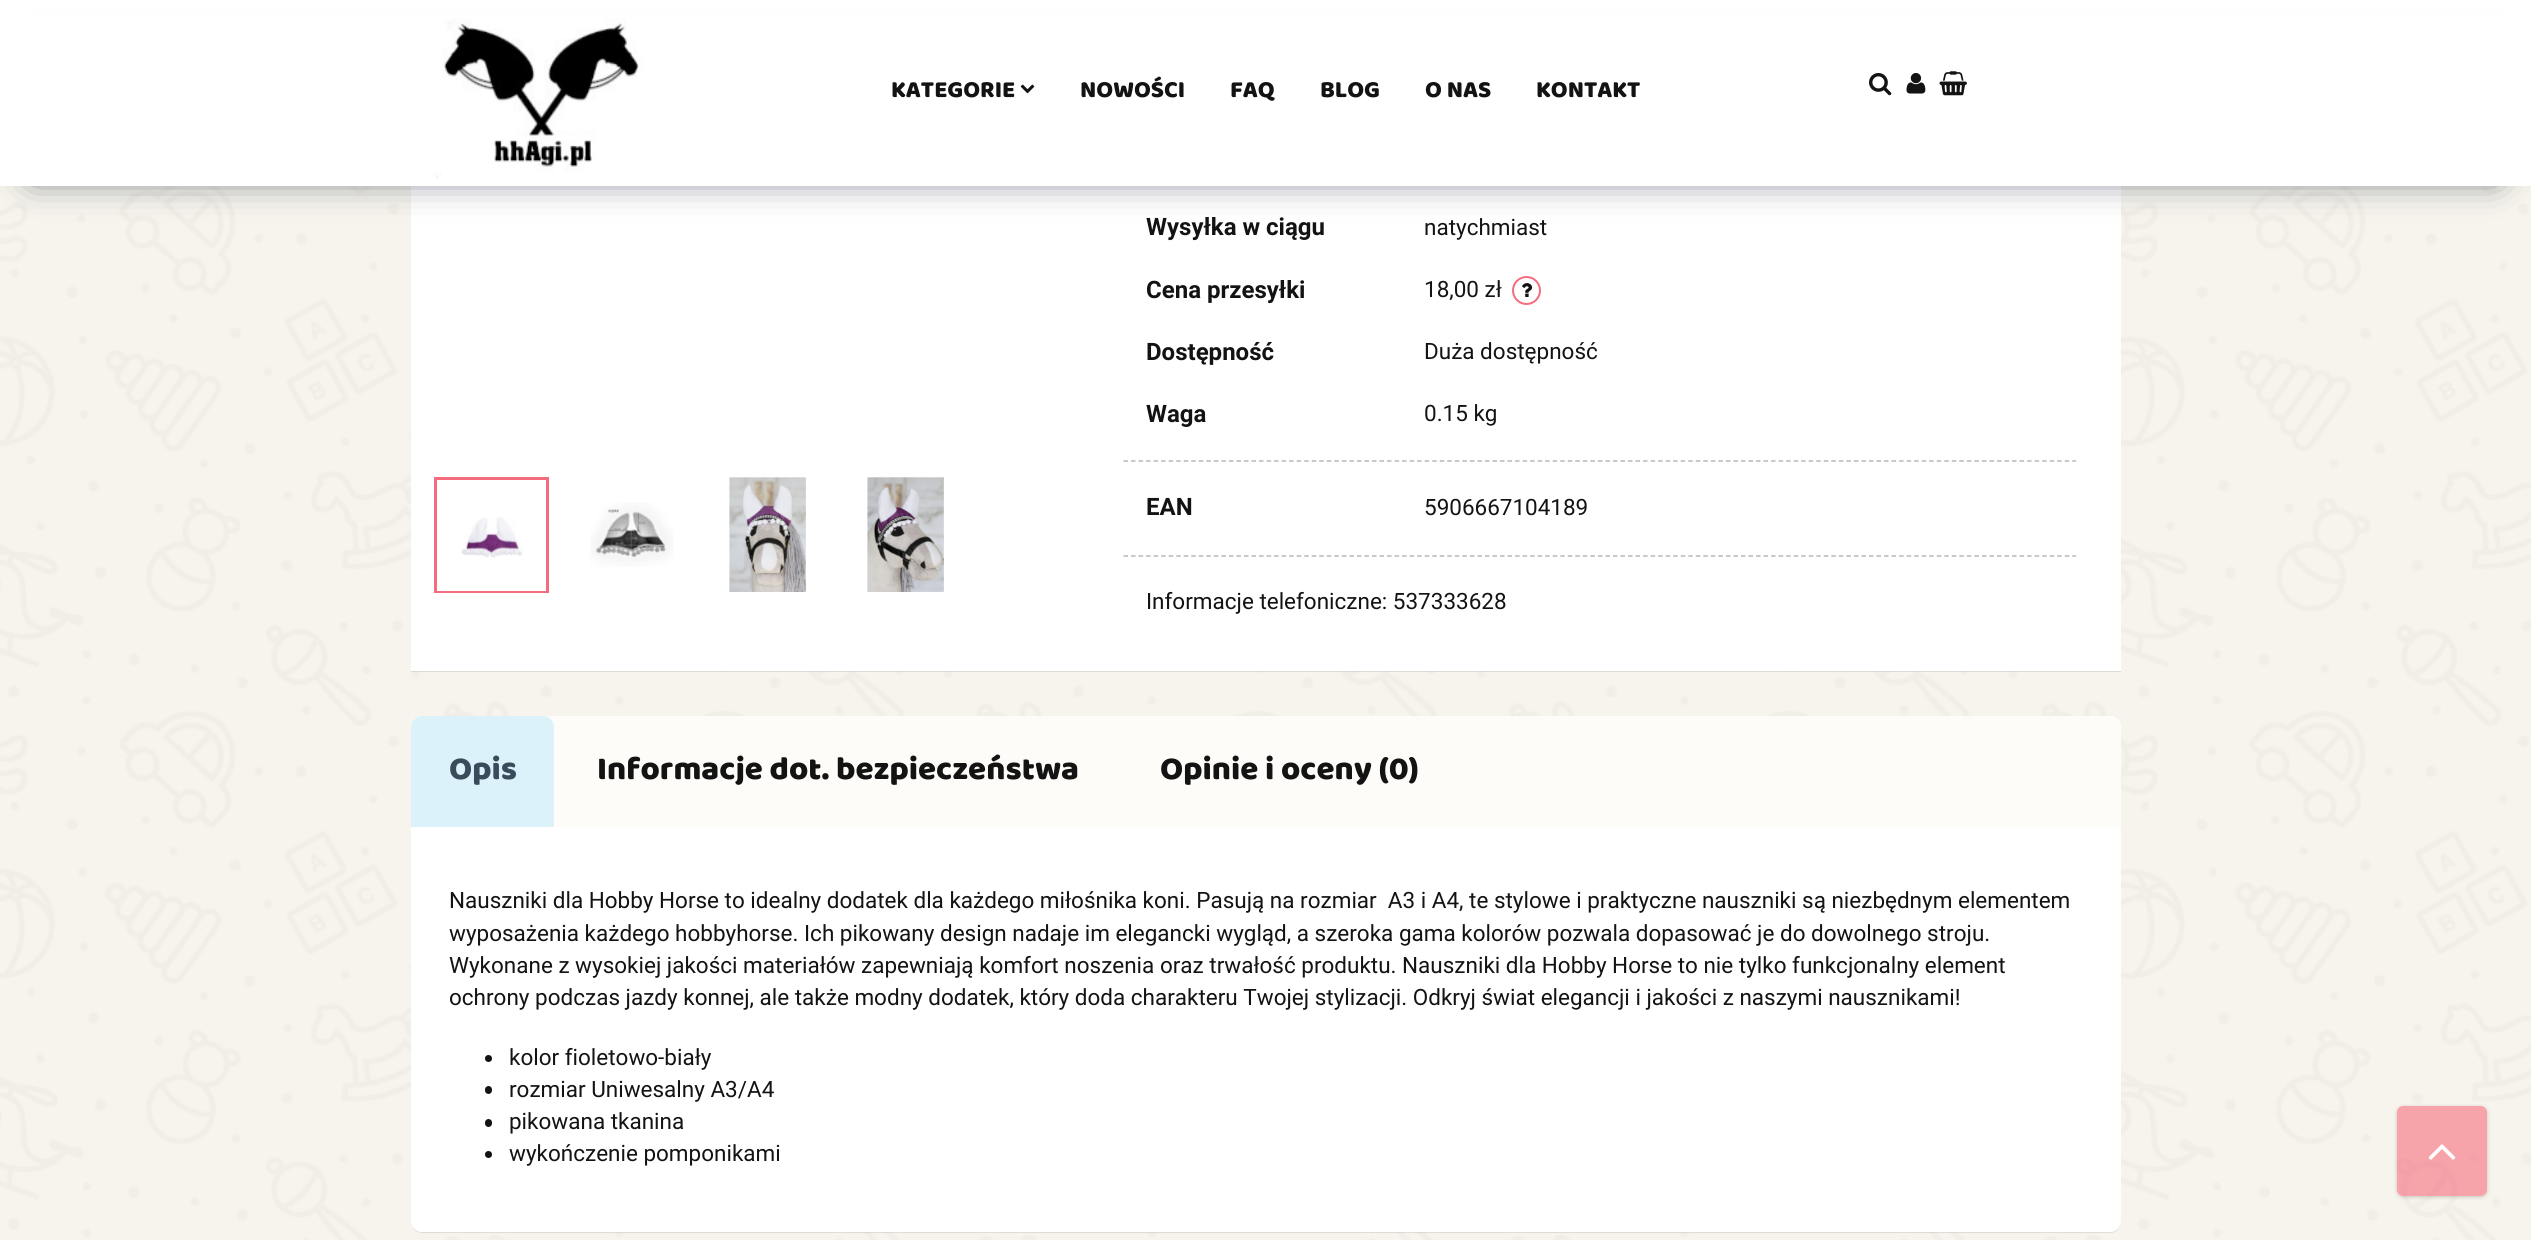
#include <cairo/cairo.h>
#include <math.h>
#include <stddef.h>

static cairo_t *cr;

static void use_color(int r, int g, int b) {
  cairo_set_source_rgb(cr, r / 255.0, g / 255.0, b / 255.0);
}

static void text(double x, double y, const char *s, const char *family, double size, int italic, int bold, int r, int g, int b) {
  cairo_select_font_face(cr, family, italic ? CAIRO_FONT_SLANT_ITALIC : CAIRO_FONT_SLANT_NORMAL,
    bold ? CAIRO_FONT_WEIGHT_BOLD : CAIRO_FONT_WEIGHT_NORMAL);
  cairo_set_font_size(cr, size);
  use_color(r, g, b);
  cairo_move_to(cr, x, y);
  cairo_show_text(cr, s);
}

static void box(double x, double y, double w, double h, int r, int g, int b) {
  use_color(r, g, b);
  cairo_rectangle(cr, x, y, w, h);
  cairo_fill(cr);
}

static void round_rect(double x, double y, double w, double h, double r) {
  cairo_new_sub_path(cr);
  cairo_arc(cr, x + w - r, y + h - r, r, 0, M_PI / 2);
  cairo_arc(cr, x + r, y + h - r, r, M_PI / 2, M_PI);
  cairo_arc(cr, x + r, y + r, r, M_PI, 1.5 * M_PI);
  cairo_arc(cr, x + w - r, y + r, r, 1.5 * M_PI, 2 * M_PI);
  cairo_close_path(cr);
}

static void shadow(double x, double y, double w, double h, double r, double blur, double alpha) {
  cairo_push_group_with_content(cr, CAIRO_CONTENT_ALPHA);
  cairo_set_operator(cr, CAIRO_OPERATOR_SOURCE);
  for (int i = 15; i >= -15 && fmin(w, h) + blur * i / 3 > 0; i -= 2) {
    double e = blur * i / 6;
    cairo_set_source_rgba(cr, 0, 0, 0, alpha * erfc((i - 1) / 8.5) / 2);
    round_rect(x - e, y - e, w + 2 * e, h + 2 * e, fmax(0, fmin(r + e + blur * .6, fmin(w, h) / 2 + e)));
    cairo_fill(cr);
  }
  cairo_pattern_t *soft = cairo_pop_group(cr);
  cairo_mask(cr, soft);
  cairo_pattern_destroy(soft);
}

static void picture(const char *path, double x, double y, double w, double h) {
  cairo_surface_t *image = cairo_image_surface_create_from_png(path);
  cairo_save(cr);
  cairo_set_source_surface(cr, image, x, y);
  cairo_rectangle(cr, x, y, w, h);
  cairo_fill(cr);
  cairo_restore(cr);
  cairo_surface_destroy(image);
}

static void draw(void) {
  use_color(255, 255, 255);
  cairo_paint(cr);
  picture("img_01.png", 0, 186, 2531, 1054);
  box(411, 186, 1710, 485, 255, 255, 255);
  use_color(66, 68, 90);
  shadow(33, 57, 2463, 117, 0, 19, 1);
  box(0, 15, 2531, 171, 255, 255, 255);
  picture("img_02.png", 432, 18, 211, 161);
  picture("img_03.png", 1020, 84, 15, 10);
  picture("img_04.png", 1869, 73, 23, 23);
  picture("img_05.png", 1906, 73, 20, 21);
  picture("img_06.png", 1939, 71, 28, 25);
  cairo_set_source_rgba(cr, 0.463, 0.435, 0.467, 0.18);
  cairo_rectangle(cr, 411, 671, 1710, 1);
  cairo_fill(cr);
  picture("img_07.png", 461, 517, 62, 41);
  cairo_save(cr);
  cairo_rectangle(cr, 434, 477, 667, 116);
  cairo_clip(cr);
  cairo_rectangle(cr, 435.5, 478.5, 112, 114);
  use_color(246, 108, 127);
  cairo_set_line_width(cr, 3);
  cairo_stroke(cr);
  cairo_restore(cr);
  picture("img_08.png", 590, 502, 84, 65);
  picture("img_09.png", 729, 477, 77, 115);
  picture("img_10.png", 867, 477, 77, 115);
  cairo_new_path(cr);
  cairo_move_to(cr, 1123.5, 461);
  cairo_line_to(cr, 2076, 461);
  use_color(184, 183, 177);
  cairo_set_line_width(cr, 1.5);
  cairo_set_dash(cr, (double[]){4.5, 3.03}, 2, 0);
  cairo_stroke(cr);
  cairo_arc(cr, 1526.5, 290.5, 13.5, 0, 2 * M_PI);
  use_color(246, 108, 127);
  cairo_set_line_width(cr, 2);
  cairo_set_dash(cr, NULL, 0, 0);
  cairo_stroke(cr);
  picture("img_11.png", 1522, 283, 11, 14);
  cairo_new_path(cr);
  cairo_move_to(cr, 1123.5, 556);
  cairo_line_to(cr, 2076, 556);
  use_color(184, 183, 177);
  cairo_set_line_width(cr, 1.5);
  cairo_set_dash(cr, (double[]){4.5, 3.03}, 2, 0);
  cairo_stroke(cr);
  cairo_set_source_rgba(cr, 0.463, 0.435, 0.467, 0.18);
  cairo_new_path(cr);
  cairo_move_to(cr, 411, 1221);
  cairo_curve_to(cr, 411, 1227, 415, 1233, 422, 1233);
  cairo_line_to(cr, 2110, 1233);
  cairo_curve_to(cr, 2117, 1233, 2121, 1227, 2121, 1221);
  cairo_curve_to(cr, 2121, 1227, 2116, 1232, 2110, 1232);
  cairo_line_to(cr, 422, 1232);
  cairo_curve_to(cr, 416, 1232, 411, 1227, 411, 1221);
  cairo_close_path(cr);
  cairo_fill(cr);
  use_color(255, 255, 255);
  round_rect(411, 716, 1710, 516, 11);
  cairo_fill(cr);
  use_color(253, 252, 248);
  cairo_new_path(cr);
  cairo_move_to(cr, 422, 716);
  cairo_line_to(cr, 2110, 716);
  cairo_curve_to(cr, 2116, 716, 2121, 721, 2121, 727);
  cairo_line_to(cr, 2121, 827);
  cairo_line_to(cr, 411, 827);
  cairo_line_to(cr, 411, 727);
  cairo_curve_to(cr, 411, 721, 416, 716, 422, 716);
  cairo_close_path(cr);
  cairo_fill(cr);
  use_color(219, 242, 250);
  cairo_new_path(cr);
  cairo_move_to(cr, 422, 716);
  cairo_line_to(cr, 543, 716);
  cairo_curve_to(cr, 549, 716, 554, 721, 554, 727);
  cairo_line_to(cr, 554, 827);
  cairo_line_to(cr, 411, 827);
  cairo_line_to(cr, 411, 727);
  cairo_curve_to(cr, 411, 721, 416, 716, 422, 716);
  cairo_close_path(cr);
  cairo_fill(cr);
  use_color(19, 19, 19);
  cairo_arc(cr, 488.5, 1058.5, 3.5, 0, 2 * M_PI);
  cairo_fill(cr);
  round_rect(485, 1086, 7, 8, 3.5);
  cairo_fill(cr);
  round_rect(485, 1119, 7, 8, 3.5);
  cairo_fill(cr);
  cairo_arc(cr, 488.5, 1154.5, 3.5, 0, 2 * M_PI);
  cairo_fill(cr);
  cairo_save(cr);
  cairo_set_fill_rule(cr, CAIRO_FILL_RULE_EVEN_ODD);
  cairo_new_path(cr);
  cairo_move_to(cr, 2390, 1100);
  cairo_line_to(cr, 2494, 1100);
  cairo_line_to(cr, 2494, 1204);
  cairo_line_to(cr, 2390, 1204);
  cairo_close_path(cr);
  cairo_move_to(cr, 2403, 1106);
  cairo_line_to(cr, 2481, 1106);
  cairo_curve_to(cr, 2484.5, 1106, 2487, 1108.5, 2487, 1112);
  cairo_line_to(cr, 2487, 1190);
  cairo_curve_to(cr, 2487, 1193.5, 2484.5, 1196, 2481, 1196);
  cairo_line_to(cr, 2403, 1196);
  cairo_curve_to(cr, 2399.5, 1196, 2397, 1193.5, 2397, 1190);
  cairo_line_to(cr, 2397, 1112);
  cairo_curve_to(cr, 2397, 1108.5, 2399.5, 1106, 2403, 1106);
  cairo_close_path(cr);
  cairo_clip(cr);
  use_color(0, 0, 0);
  shadow(2397, 1107, 90, 90, 6, 2, 0.2);
  cairo_restore(cr);
  cairo_set_source_rgba(cr, 0.965, 0.424, 0.498, 0.6);
  round_rect(2397, 1106, 90, 90, 6);
  cairo_fill(cr);
  picture("img_12.png", 2428, 1144, 28, 16);
  text(891, 97, "KATEGORIE", "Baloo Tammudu", 24, 0, 0, 19, 19, 19);
  text(1080, 97, "NOWOŚCI", "Baloo Tammudu", 24, 0, 0, 19, 19, 19);
  text(1230, 97, "FAQ", "Baloo Tammudu", 24, 0, 0, 19, 19, 19);
  text(1320, 97, "BLOG", "Baloo Tammudu", 24, 0, 0, 19, 19, 19);
  text(1425, 97, "O NAS", "Baloo Tammudu", 24, 0, 0, 19, 19, 19);
  text(1536, 97, "KONTAKT", "Baloo Tammudu", 24, 0, 0, 19, 19, 19);
  text(1146, 235, "Wysyłka w ciągu", "Roboto", 24, 0, 1, 19, 19, 19);
  text(1424, 235, "natychmiast", "Roboto", 22.5, 0, 0, 19, 19, 19);
  text(1146, 298, "Cena przesyłki", "Roboto", 24, 0, 1, 19, 19, 19);
  text(1424, 297, "18,00 zł", "Roboto", 22.5, 0, 0, 19, 19, 19);
  text(1146, 360, "Dostępność", "Roboto", 24, 0, 1, 19, 19, 19);
  text(1424, 359, "Duża dostępność", "Roboto", 22.5, 0, 0, 19, 19, 19);
  text(1146, 422, "Waga", "Roboto", 24, 0, 1, 19, 19, 19);
  text(1424, 421, "0.15 kg", "Roboto", 22.5, 0, 0, 19, 19, 19);
  text(1146, 515, "EAN", "Roboto", 24, 0, 1, 19, 19, 19);
  text(1424, 515, "5906667104189", "Roboto", 22.5, 0, 0, 19, 19, 19);
  text(1146, 609, "Informacje telefoniczne: 537333628", "Roboto", 22.5, 0, 0, 19, 19, 19);
  text(449, 779, "Opis", "Baloo Tammudu", 33, 0, 0, 57, 76, 91);
  text(597, 779, "Informacje dot. bezpieczeństwa", "Baloo Tammudu", 33, 0, 0, 19, 19, 19);
  text(1160, 779, "Opinie i oceny (0)", "Baloo Tammudu", 33, 0, 0, 19, 19, 19);
  text(449, 908, "Nauszniki dla Hobby Horse to idealny dodatek dla każdego miłośnika koni. Pasują na rozmiar  A3 i A4, te stylowe i praktyczne nauszniki są niezbędnym elementem", "Roboto", 22.5, 0, 0, 19, 19, 19);
  text(449, 941, "wyposażenia każdego hobbyhorse. Ich pikowany design nadaje im elegancki wygląd, a szeroka gama kolorów pozwala dopasować je do dowolnego stroju.", "Roboto", 22.5, 0, 0, 19, 19, 19);
  text(449, 973, "Wykonane z wysokiej jakości materiałów zapewniają komfort noszenia oraz trwałość produktu. Nauszniki dla Hobby Horse to nie tylko funkcjonalny element", "Roboto", 22.5, 0, 0, 19, 19, 19);
  text(449, 1005, "ochrony podczas jazdy konnej, ale także modny dodatek, który doda charakteru Twojej stylizacji. Odkryj świat elegancji i jakości z naszymi nausznikami!", "Roboto", 22.5, 0, 0, 19, 19, 19);
  text(509, 1065, "kolor fioletowo-biały", "Roboto", 22.5, 0, 0, 19, 19, 19);
  text(509, 1097, "rozmiar Uniwesalny A3/A4", "Roboto", 22.5, 0, 0, 19, 19, 19);
  text(509, 1129, "pikowana tkanina", "Roboto", 22.5, 0, 0, 19, 19, 19);
  text(509, 1161, "wykończenie pomponikami", "Roboto", 22.5, 0, 0, 19, 19, 19);
}

int main(void) {
  cairo_surface_t *surface = cairo_image_surface_create(CAIRO_FORMAT_RGB24, 2531, 1240);
  cr = cairo_create(surface);
  cairo_font_options_t *options = cairo_font_options_create();
  cairo_font_options_set_hint_metrics(options, CAIRO_HINT_METRICS_OFF);
  cairo_font_options_set_hint_style(options, CAIRO_HINT_STYLE_NONE);
  cairo_set_font_options(cr, options);
  cairo_set_miter_limit(cr, 4);
  draw();
  cairo_surface_write_to_png(surface, "out.png");
  cairo_font_options_destroy(options);
  cairo_destroy(cr);
  cairo_surface_destroy(surface);
  return 0;
}
